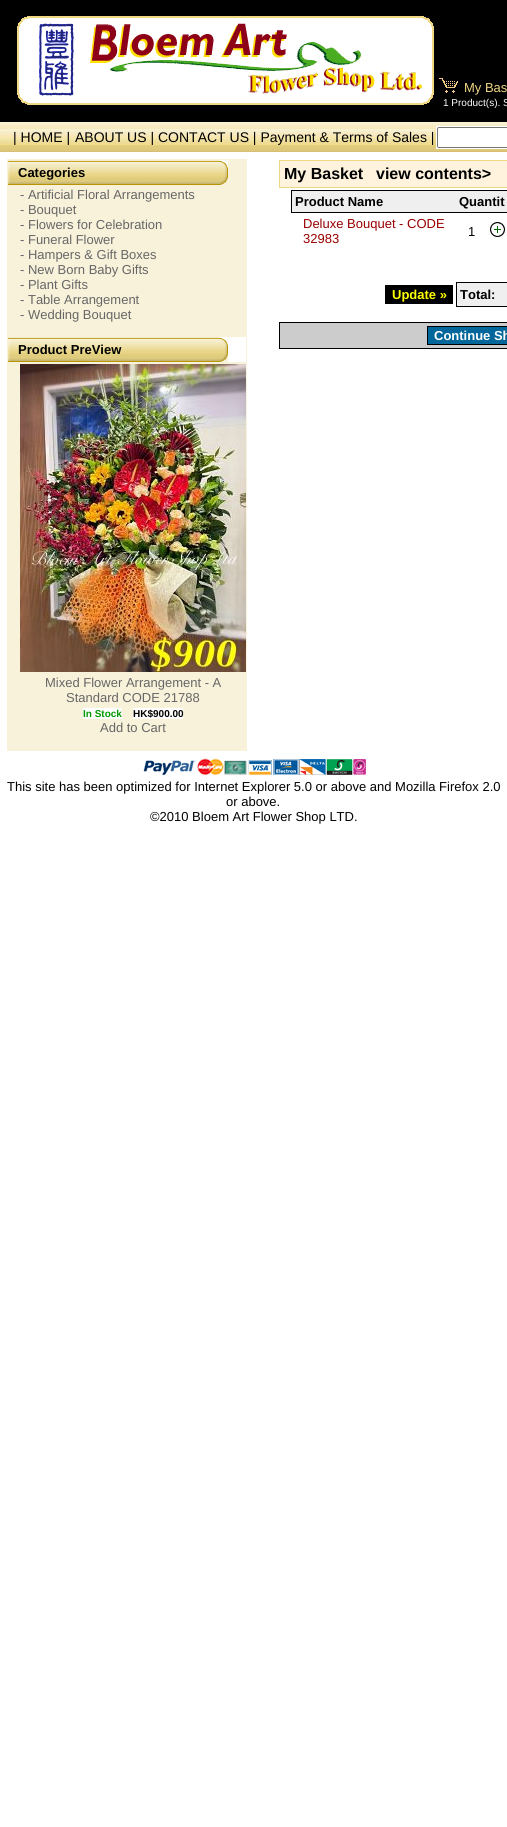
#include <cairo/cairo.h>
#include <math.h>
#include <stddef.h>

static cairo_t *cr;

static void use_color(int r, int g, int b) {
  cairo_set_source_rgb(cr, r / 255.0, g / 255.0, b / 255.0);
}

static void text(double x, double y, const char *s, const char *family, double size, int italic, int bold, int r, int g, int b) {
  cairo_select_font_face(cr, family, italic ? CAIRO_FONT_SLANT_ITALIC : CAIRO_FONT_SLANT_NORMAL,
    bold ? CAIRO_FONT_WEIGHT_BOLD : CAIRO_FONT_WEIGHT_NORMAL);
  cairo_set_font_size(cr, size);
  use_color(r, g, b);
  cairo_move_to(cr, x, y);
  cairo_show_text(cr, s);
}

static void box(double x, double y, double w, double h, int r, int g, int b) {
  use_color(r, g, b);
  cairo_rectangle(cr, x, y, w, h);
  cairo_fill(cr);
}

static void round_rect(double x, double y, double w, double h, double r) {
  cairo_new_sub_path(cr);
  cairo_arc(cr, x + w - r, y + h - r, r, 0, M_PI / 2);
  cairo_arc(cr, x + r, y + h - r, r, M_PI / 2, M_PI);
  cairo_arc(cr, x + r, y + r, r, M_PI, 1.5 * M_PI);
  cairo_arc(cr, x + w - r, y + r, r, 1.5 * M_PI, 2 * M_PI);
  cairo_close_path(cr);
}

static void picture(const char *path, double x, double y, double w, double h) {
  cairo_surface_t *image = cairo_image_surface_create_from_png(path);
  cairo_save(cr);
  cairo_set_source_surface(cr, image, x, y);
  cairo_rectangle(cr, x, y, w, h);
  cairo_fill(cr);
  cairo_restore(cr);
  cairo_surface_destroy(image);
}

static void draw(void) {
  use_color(255, 255, 255);
  cairo_paint(cr);
  box(0, 0, 507, 122, 0, 0, 0);
  picture("img_01.png", 17, 16, 417, 89);
  picture("img_02.png", 439, 78, 19, 15);
  picture("img_03.png", 0, 122, 436, 30);
  picture("img_04.png", 0, 129, 70, 16);
  picture("img_05.png", 70, 129, 364, 16);
  picture("img_06.png", 436, 122, 71, 30);
  box(436, 126, 71, 23, 255, 255, 255);
  round_rect(437.5, 127.5, 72, 20, 1.5);
  use_color(118, 118, 118);
  cairo_set_line_width(cr, 1);
  cairo_stroke(cr);
  box(7, 159, 240, 592, 248, 242, 219);
  picture("img_07.png", 8, 160, 220, 25);
  box(228, 337, 18, 25, 255, 255, 255);
  picture("img_07.png", 8, 337, 220, 25);
  picture("img_08.png", 20, 364, 226, 308);
  box(83, 708, 39, 11, 255, 255, 255);
  box(133, 708, 50, 11, 255, 255, 255);
  use_color(255, 243, 222);
  cairo_rectangle(cr, 279.5, 160.5, 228, 27);
  cairo_fill_preserve(cr);
  use_color(239, 215, 132);
  cairo_stroke(cr);
  box(292, 191, 215, 21, 239, 239, 239);
  box(291, 190, 216, 1, 0, 0, 0);
  box(291, 212, 216, 1, 0, 0, 0);
  box(291, 190, 1, 23, 0, 0, 0);
  picture("img_09.png", 490, 222, 15, 15);
  box(385, 285, 68, 19, 0, 0, 0);
  use_color(239, 239, 239);
  cairo_rectangle(cr, 456.5, 282.5, 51, 24);
  cairo_fill_preserve(cr);
  use_color(0, 0, 0);
  cairo_stroke(cr);
  use_color(204, 204, 204);
  cairo_rectangle(cr, 279.5, 322.5, 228, 26);
  cairo_fill_preserve(cr);
  use_color(0, 0, 0);
  cairo_stroke(cr);
  use_color(1, 102, 154);
  cairo_rectangle(cr, 427.5, 326.5, 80, 18);
  cairo_fill_preserve(cr);
  use_color(0, 0, 0);
  cairo_stroke(cr);
  picture("img_10.png", 143, 758, 223, 18);
  text(464, 92, "My Bas", "Liberation Sans", 13, 0, 0, 239, 215, 132);
  text(443, 106, "1 Product(s). S", "Liberation Sans", 10, 0, 0, 255, 255, 255);
  text(13, 142, "| HOME |", "Liberation Sans", 14, 0, 0, 0, 0, 0);
  text(75, 142, "ABOUT US | CONTACT US | Payment & Terms of Sales |", "Liberation Sans", 14, 0, 0, 0, 0, 0);
  text(18, 177, "Categories", "Liberation Sans", 13, 0, 1, 0, 0, 0);
  text(20, 199, "- Artificial Floral Arrangements", "Liberation Sans", 13, 0, 0, 102, 102, 102);
  text(20, 214, "- Bouquet", "Liberation Sans", 13, 0, 0, 102, 102, 102);
  text(20, 229, "- Flowers for Celebration", "Liberation Sans", 13, 0, 0, 102, 102, 102);
  text(20, 244, "- Funeral Flower", "Liberation Sans", 13, 0, 0, 102, 102, 102);
  text(20, 259, "- Hampers & Gift Boxes", "Liberation Sans", 13, 0, 0, 102, 102, 102);
  text(20, 274, "- New Born Baby Gifts", "Liberation Sans", 13, 0, 0, 102, 102, 102);
  text(20, 289, "- Plant Gifts", "Liberation Sans", 13, 0, 0, 102, 102, 102);
  text(20, 304, "- Table Arrangement", "Liberation Sans", 13, 0, 0, 102, 102, 102);
  text(20, 319, "- Wedding Bouquet", "Liberation Sans", 13, 0, 0, 102, 102, 102);
  text(18, 354, "Product PreView", "Liberation Sans", 13, 0, 1, 0, 0, 0);
  text(45, 687, "Mixed Flower Arrangement - A", "Liberation Sans", 13, 0, 0, 102, 102, 102);
  text(66, 702, "Standard CODE 21788", "Liberation Sans", 13, 0, 0, 102, 102, 102);
  text(83, 717, "In Stock", "Liberation Sans", 10, 0, 1, 0, 153, 0);
  text(133, 717, "HK$900.00", "Liberation Sans", 10, 0, 1, 0, 0, 0);
  text(100, 732, "Add to Cart", "Liberation Sans", 13, 0, 0, 102, 102, 102);
  text(284, 179, "My Basket", "Liberation Sans", 16, 0, 1, 0, 0, 0);
  text(376, 179, "view contents>", "Liberation Sans", 16, 0, 1, 0, 0, 0);
  text(295, 206, "Product Name", "Liberation Sans", 13, 0, 1, 0, 0, 0);
  text(459, 206, "Quantit", "Liberation Sans", 13, 0, 1, 0, 0, 0);
  text(303, 228, "Deluxe Bouquet - CODE", "Liberation Sans", 13, 0, 0, 153, 0, 0);
  text(303, 243, "32983", "Liberation Sans", 13, 0, 0, 153, 0, 0);
  text(468, 236, "1", "Liberation Sans", 13, 0, 0, 0, 0, 0);
  text(392, 299, "Update »", "Liberation Sans", 13, 0, 1, 255, 255, 0);
  text(460, 299, "Total:", "Liberation Sans", 13, 0, 1, 0, 0, 0);
  text(434, 340, "Continue Sh", "Liberation Sans", 13, 0, 1, 255, 255, 255);
  text(7, 791, "This site has been optimized for Internet Explorer 5.0 or above and Mozilla Firefox 2.0", "Liberation Sans", 13, 0, 0, 0, 0, 0);
  text(226, 806, "or above.", "Liberation Sans", 13, 0, 0, 0, 0, 0);
  text(150, 821, "©2010 Bloem Art Flower Shop LTD.", "Liberation Sans", 13, 0, 0, 0, 0, 0);
}

int main(void) {
  cairo_surface_t *surface = cairo_image_surface_create(CAIRO_FORMAT_RGB24, 507, 1827);
  cr = cairo_create(surface);
  cairo_font_options_t *options = cairo_font_options_create();
  cairo_font_options_set_hint_metrics(options, CAIRO_HINT_METRICS_OFF);
  cairo_font_options_set_hint_style(options, CAIRO_HINT_STYLE_NONE);
  cairo_set_font_options(cr, options);
  cairo_set_miter_limit(cr, 4);
  draw();
  cairo_surface_write_to_png(surface, "out.png");
  cairo_font_options_destroy(options);
  cairo_destroy(cr);
  cairo_surface_destroy(surface);
  return 0;
}
